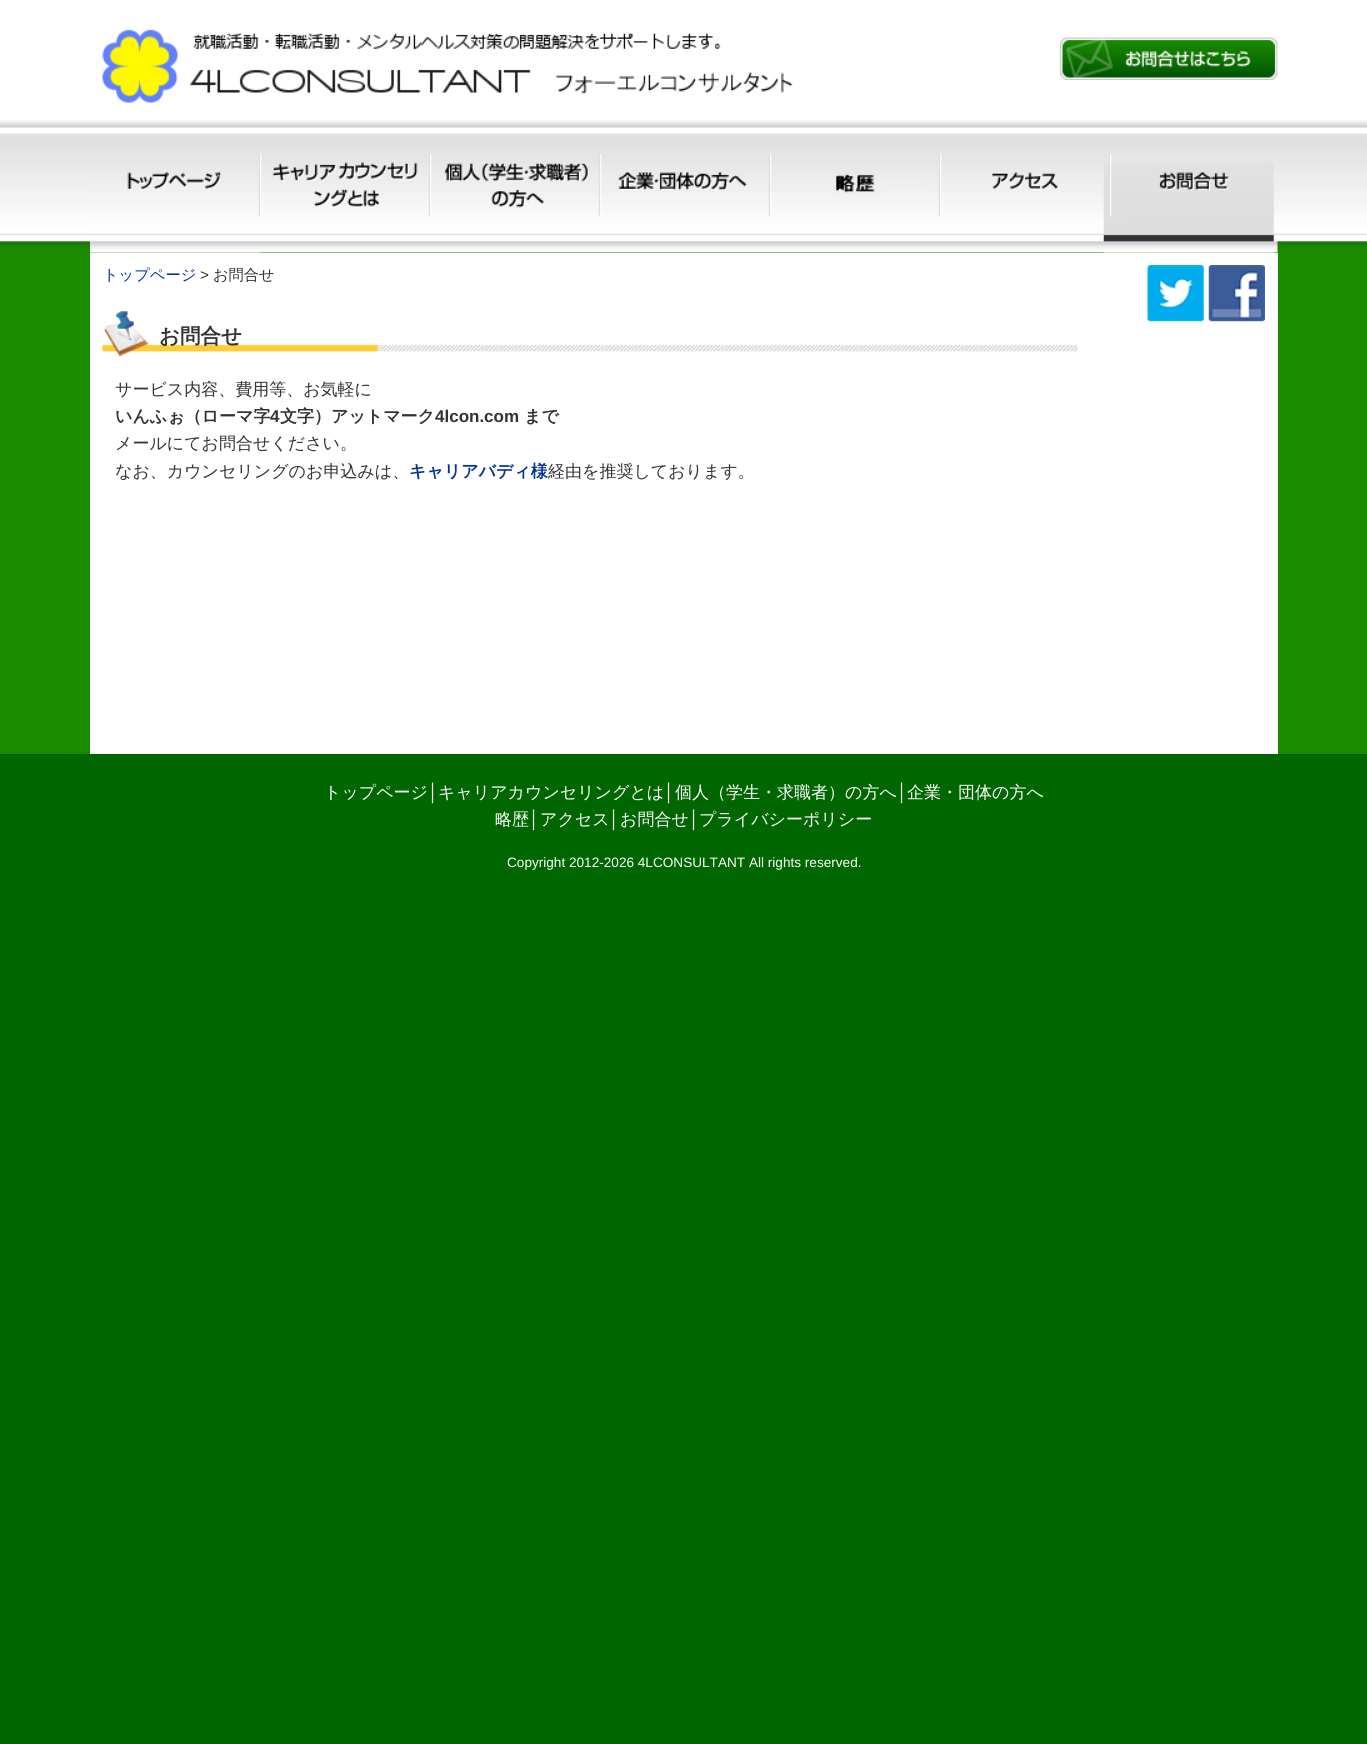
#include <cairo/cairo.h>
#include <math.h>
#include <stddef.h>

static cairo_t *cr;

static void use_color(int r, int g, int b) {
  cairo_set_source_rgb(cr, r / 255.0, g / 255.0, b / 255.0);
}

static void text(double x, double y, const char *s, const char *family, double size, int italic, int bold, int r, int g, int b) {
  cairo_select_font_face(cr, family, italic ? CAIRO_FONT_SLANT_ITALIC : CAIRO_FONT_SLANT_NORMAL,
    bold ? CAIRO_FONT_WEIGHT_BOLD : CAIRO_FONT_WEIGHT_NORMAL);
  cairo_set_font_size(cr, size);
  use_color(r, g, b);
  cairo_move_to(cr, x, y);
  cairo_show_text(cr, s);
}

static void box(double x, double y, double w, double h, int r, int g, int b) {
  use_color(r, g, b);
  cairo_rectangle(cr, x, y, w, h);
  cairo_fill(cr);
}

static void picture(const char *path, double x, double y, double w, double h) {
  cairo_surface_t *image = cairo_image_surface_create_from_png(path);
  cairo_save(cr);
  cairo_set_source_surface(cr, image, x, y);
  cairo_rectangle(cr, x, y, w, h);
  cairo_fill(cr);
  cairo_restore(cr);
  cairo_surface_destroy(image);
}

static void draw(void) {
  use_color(0, 103, 0);
  cairo_paint(cr);
  box(0, 248, 1367, 506, 26, 139, 0);
  box(0, 0, 1367, 120, 255, 255, 255);
  picture("img_01.png", 102, 29, 691, 74);
  picture("img_02.png", 1060, 37, 218, 43);
  picture("img_03.png", 0, 120, 1367, 128);
  picture("img_04.png", 90, 153, 1188, 100);
  box(90, 252, 170, 1, 193, 222, 187);
  picture("img_05.png", 1103, 162, 171, 91);
  box(90, 253, 1188, 501, 255, 255, 255);
  picture("img_06.png", 102, 311, 976, 46);
  picture("img_07.png", 1147, 265, 57, 57);
  picture("img_08.png", 1208, 265, 57, 57);
  text(103, 280, "トップページ", "WenQuanYi Zen Hei Medium", 15.25, 0, 0, 0, 51, 153);
  text(200, 280, ">", "Liberation Sans", 15.25, 0, 0, 51, 51, 51);
  text(213, 280, "お問合せ", "WenQuanYi Zen Hei Medium", 15.25, 0, 0, 51, 51, 51);
  text(159, 343, "お問合せ", "WenQuanYi Zen Hei", 20.5, 0, 1, 51, 51, 51);
  text(115, 395, "サービス内容、費用等、お気軽に", "WenQuanYi Zen Hei Medium", 17, 0, 0, 51, 51, 51);
  text(115, 422, "いんふぉ（ローマ字", "WenQuanYi Zen Hei", 17, 0, 1, 51, 51, 51);
  text(270, 422, "4", "Liberation Sans", 17, 0, 1, 51, 51, 51);
  text(280, 422, "文字）アットマーク", "WenQuanYi Zen Hei", 17, 0, 1, 51, 51, 51);
  text(435, 422, "4lcon.com", "Liberation Sans", 17, 0, 1, 51, 51, 51);
  text(524, 422, "まで", "WenQuanYi Zen Hei", 17, 0, 1, 51, 51, 51);
  text(115, 449, "メールにてお問合せください。", "WenQuanYi Zen Hei Medium", 17, 0, 0, 51, 51, 51);
  text(115, 477, "なお、カウンセリングのお申込みは、", "WenQuanYi Zen Hei Medium", 17, 0, 0, 51, 51, 51);
  text(409, 477, "キャリアバディ様", "WenQuanYi Zen Hei", 17, 0, 1, 0, 51, 153);
  text(548, 477, "経由を推奨しております。", "WenQuanYi Zen Hei Medium", 17, 0, 0, 51, 51, 51);
  text(324, 798, "トップページ", "WenQuanYi Zen Hei Medium", 17, 0, 0, 255, 255, 255);
  text(428, 798, "│", "Liberation Sans", 17, 0, 0, 255, 255, 255);
  text(438, 798, "キャリアカウンセリングとは", "WenQuanYi Zen Hei Medium", 17, 0, 0, 255, 255, 255);
  text(664, 798, "│", "Liberation Sans", 17, 0, 0, 255, 255, 255);
  text(675, 798, "個人（学生・求職者）の方へ", "WenQuanYi Zen Hei Medium", 17, 0, 0, 255, 255, 255);
  text(897, 798, "│", "Liberation Sans", 17, 0, 0, 255, 255, 255);
  text(907, 798, "企業・団体の方へ", "WenQuanYi Zen Hei Medium", 17, 0, 0, 255, 255, 255);
  text(495, 825, "略歴", "WenQuanYi Zen Hei Medium", 17, 0, 0, 255, 255, 255);
  text(529, 825, "│", "Liberation Sans", 17, 0, 0, 255, 255, 255);
  text(540, 825, "アクセス", "WenQuanYi Zen Hei Medium", 17, 0, 0, 255, 255, 255);
  text(609, 825, "│", "Liberation Sans", 17, 0, 0, 255, 255, 255);
  text(620, 825, "お問合せ", "WenQuanYi Zen Hei Medium", 17, 0, 0, 255, 255, 255);
  text(689, 825, "│", "Liberation Sans", 17, 0, 0, 255, 255, 255);
  text(699, 825, "プライバシーポリシー", "WenQuanYi Zen Hei Medium", 17, 0, 0, 255, 255, 255);
  text(507, 867, "Copyright 2012-2026 4LCONSULTANT All rights reserved.", "Liberation Sans", 13.6, 0, 0, 255, 255, 255);
}

int main(void) {
  cairo_surface_t *surface = cairo_image_surface_create(CAIRO_FORMAT_RGB24, 1367, 1744);
  cr = cairo_create(surface);
  cairo_font_options_t *options = cairo_font_options_create();
  cairo_font_options_set_hint_metrics(options, CAIRO_HINT_METRICS_OFF);
  cairo_font_options_set_hint_style(options, CAIRO_HINT_STYLE_NONE);
  cairo_set_font_options(cr, options);
  cairo_set_miter_limit(cr, 4);
  draw();
  cairo_surface_write_to_png(surface, "out.png");
  cairo_font_options_destroy(options);
  cairo_destroy(cr);
  cairo_surface_destroy(surface);
  return 0;
}
